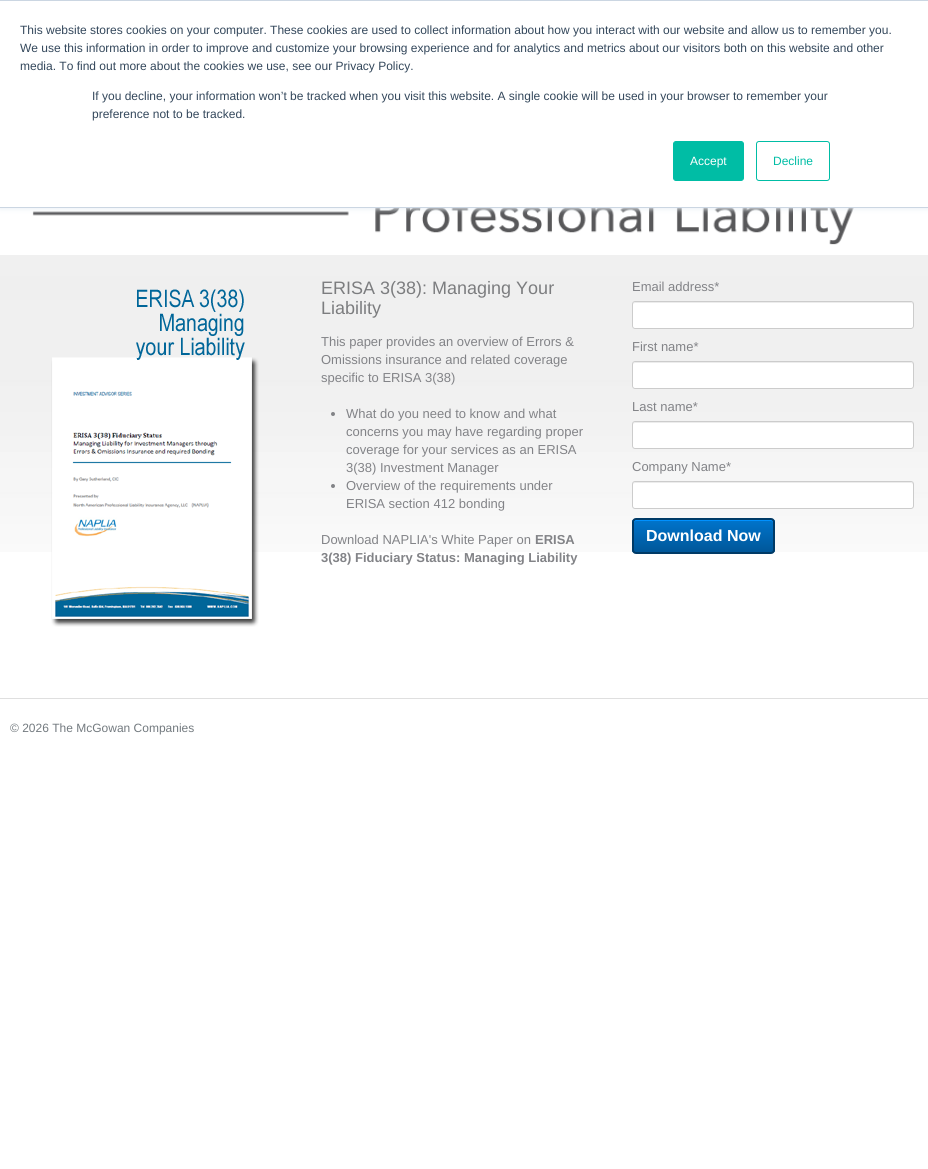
#include <cairo/cairo.h>
#include <math.h>
#include <stddef.h>

static cairo_t *cr;

static void use_color(int r, int g, int b) {
  cairo_set_source_rgb(cr, r / 255.0, g / 255.0, b / 255.0);
}

static void text(double x, double y, const char *s, const char *family, double size, int italic, int bold, int r, int g, int b) {
  cairo_select_font_face(cr, family, italic ? CAIRO_FONT_SLANT_ITALIC : CAIRO_FONT_SLANT_NORMAL,
    bold ? CAIRO_FONT_WEIGHT_BOLD : CAIRO_FONT_WEIGHT_NORMAL);
  cairo_set_font_size(cr, size);
  use_color(r, g, b);
  cairo_move_to(cr, x, y);
  cairo_show_text(cr, s);
}

static void box(double x, double y, double w, double h, int r, int g, int b) {
  use_color(r, g, b);
  cairo_rectangle(cr, x, y, w, h);
  cairo_fill(cr);
}

static void round_rect(double x, double y, double w, double h, double r) {
  cairo_new_sub_path(cr);
  cairo_arc(cr, x + w - r, y + h - r, r, 0, M_PI / 2);
  cairo_arc(cr, x + r, y + h - r, r, M_PI / 2, M_PI);
  cairo_arc(cr, x + r, y + r, r, M_PI, 1.5 * M_PI);
  cairo_arc(cr, x + w - r, y + r, r, 1.5 * M_PI, 2 * M_PI);
  cairo_close_path(cr);
}

static void shadow(double x, double y, double w, double h, double r, double blur, double alpha) {
  cairo_push_group_with_content(cr, CAIRO_CONTENT_ALPHA);
  cairo_set_operator(cr, CAIRO_OPERATOR_SOURCE);
  for (int i = 15; i >= -15 && fmin(w, h) + blur * i / 3 > 0; i -= 2) {
    double e = blur * i / 6;
    cairo_set_source_rgba(cr, 0, 0, 0, alpha * erfc((i - 1) / 8.5) / 2);
    round_rect(x - e, y - e, w + 2 * e, h + 2 * e, fmax(0, fmin(r + e + blur * .6, fmin(w, h) / 2 + e)));
    cairo_fill(cr);
  }
  cairo_pattern_t *soft = cairo_pop_group(cr);
  cairo_mask(cr, soft);
  cairo_pattern_destroy(soft);
}

static void picture(const char *path, double x, double y, double w, double h) {
  cairo_surface_t *image = cairo_image_surface_create_from_png(path);
  cairo_save(cr);
  cairo_set_source_surface(cr, image, x, y);
  cairo_rectangle(cr, x, y, w, h);
  cairo_fill(cr);
  cairo_restore(cr);
  cairo_surface_destroy(image);
}

static void draw(void) {
  cairo_pattern_t *gradient;
  use_color(255, 255, 255);
  cairo_paint(cr);
  picture("img_01.png", 32, 208, 822, 37);
  use_color(234, 240, 246);
  shadow(0, 1, 928, 208, 0, 2.5, 1);
  box(0, 1, 928, 206, 255, 255, 255);
  box(0, 0, 928, 1, 203, 214, 226);
  box(0, 207, 928, 1, 203, 214, 226);
  use_color(0, 189, 165);
  round_rect(673.5, 141.5, 70, 39, 2.5);
  cairo_fill_preserve(cr);
  cairo_set_line_width(cr, 1);
  cairo_stroke(cr);
  round_rect(756.5, 141.5, 73, 39, 2.5);
  cairo_stroke(cr);
  box(0, 255, 928, 13, 240, 240, 240);
  picture("img_02.png", 0, 268, 928, 284);
  picture("img_03.png", 51, 289, 208, 338);
  use_color(130, 131, 135);
  cairo_arc(cr, 333, 414, 2, 0, 2 * M_PI);
  cairo_fill(cr);
  cairo_arc(cr, 333, 486, 2, 0, 2 * M_PI);
  cairo_fill(cr);
  use_color(255, 255, 255);
  round_rect(632, 301, 282, 28, 3);
  cairo_fill(cr);
  use_color(236, 236, 236);
  cairo_new_path(cr);
  cairo_move_to(cr, 635, 303);
  cairo_line_to(cr, 911, 303);
  cairo_curve_to(cr, 912, 303, 913, 304, 913, 305);
  cairo_line_to(cr, 913, 303);
  cairo_line_to(cr, 911, 302);
  cairo_line_to(cr, 635, 302);
  cairo_curve_to(cr, 633, 302, 633, 304, 633, 305);
  cairo_curve_to(cr, 633, 304, 634, 303, 635, 303);
  cairo_close_path(cr);
  cairo_fill(cr);
  round_rect(632.5, 301.5, 281, 27, 2.5);
  use_color(204, 204, 204);
  cairo_stroke(cr);
  use_color(255, 255, 255);
  round_rect(632, 361, 282, 28, 3);
  cairo_fill(cr);
  use_color(236, 236, 236);
  cairo_new_path(cr);
  cairo_move_to(cr, 635, 363);
  cairo_line_to(cr, 911, 363);
  cairo_curve_to(cr, 912, 363, 913, 364, 913, 365);
  cairo_line_to(cr, 913, 363);
  cairo_line_to(cr, 911, 362);
  cairo_line_to(cr, 635, 362);
  cairo_curve_to(cr, 633, 362, 633, 364, 633, 365);
  cairo_curve_to(cr, 633, 364, 634, 363, 635, 363);
  cairo_close_path(cr);
  cairo_fill(cr);
  round_rect(632.5, 361.5, 281, 27, 2.5);
  use_color(204, 204, 204);
  cairo_stroke(cr);
  use_color(255, 255, 255);
  round_rect(632, 421, 282, 28, 3);
  cairo_fill(cr);
  use_color(236, 236, 236);
  cairo_new_path(cr);
  cairo_move_to(cr, 635, 423);
  cairo_line_to(cr, 911, 423);
  cairo_curve_to(cr, 912, 423, 913, 424, 913, 425);
  cairo_line_to(cr, 913, 423);
  cairo_line_to(cr, 911, 422);
  cairo_line_to(cr, 635, 422);
  cairo_curve_to(cr, 633, 422, 633, 424, 633, 425);
  cairo_curve_to(cr, 633, 424, 634, 423, 635, 423);
  cairo_close_path(cr);
  cairo_fill(cr);
  round_rect(632.5, 421.5, 281, 27, 2.5);
  use_color(204, 204, 204);
  cairo_stroke(cr);
  use_color(255, 255, 255);
  round_rect(632, 481, 282, 28, 3);
  cairo_fill(cr);
  use_color(236, 236, 236);
  cairo_new_path(cr);
  cairo_move_to(cr, 635, 483);
  cairo_line_to(cr, 911, 483);
  cairo_curve_to(cr, 912, 483, 913, 484, 913, 485);
  cairo_line_to(cr, 913, 483);
  cairo_line_to(cr, 911, 482);
  cairo_line_to(cr, 635, 482);
  cairo_curve_to(cr, 633, 482, 633, 484, 633, 485);
  cairo_curve_to(cr, 633, 484, 634, 483, 635, 483);
  cairo_close_path(cr);
  cairo_fill(cr);
  round_rect(632.5, 481.5, 281, 27, 2.5);
  use_color(204, 204, 204);
  cairo_stroke(cr);
  cairo_save(cr);
  round_rect(632, 518, 143, 36, 4);
  cairo_clip(cr);
  gradient = cairo_pattern_create_linear(704, 520, 704, 552);
  cairo_pattern_add_color_stop_rgba(gradient, 0, 0, 0.455, 0.8, 1);
  cairo_pattern_add_color_stop_rgba(gradient, 1, 0, 0.341, 0.6, 1);
  cairo_set_source(cr, gradient);
  cairo_pattern_destroy(gradient);
  cairo_rectangle(cr, 632, 520, 143, 32);
  cairo_fill(cr);
  cairo_restore(cr);
  use_color(0, 145, 255);
  cairo_new_path(cr);
  cairo_move_to(cr, 636, 521);
  cairo_line_to(cr, 771, 521);
  cairo_curve_to(cr, 772, 521, 773, 522, 773, 523);
  cairo_curve_to(cr, 773, 522, 773, 520, 771, 520);
  cairo_line_to(cr, 636, 520);
  cairo_curve_to(cr, 634, 520, 634, 522, 634, 523);
  cairo_curve_to(cr, 634, 522, 635, 521, 636, 521);
  cairo_close_path(cr);
  cairo_fill(cr);
  round_rect(633, 519, 141, 34, 3);
  use_color(0, 58, 102);
  cairo_set_line_width(cr, 2);
  cairo_stroke(cr);
  box(0, 698, 928, 1, 223, 223, 223);
  text(20, 34, "This website stores cookies on your computer. These cookies are used to collect information about how you interact with our website and allow us to remember you.", "Liberation Sans", 12, 0, 0, 51, 71, 91);
  text(20, 52, "We use this information in order to improve and customize your browsing experience and for analytics and metrics about our visitors both on this website and other", "Liberation Sans", 12, 0, 0, 51, 71, 91);
  text(20, 70, "media. To find out more about the cookies we use, see our Privacy Policy.", "Liberation Sans", 12, 0, 0, 51, 71, 91);
  text(92, 100, "If you decline, your information won’t be tracked when you visit this website. A single cookie will be used in your browser to remember your", "Liberation Sans", 12, 0, 0, 51, 71, 91);
  text(92, 118, "preference not to be tracked.", "Liberation Sans", 12, 0, 0, 51, 71, 91);
  text(690, 165, "Accept", "Liberation Sans", 12, 0, 0, 255, 255, 255);
  text(773, 165, "Decline", "Liberation Sans", 12, 0, 0, 0, 189, 165);
  text(321, 294, "ERISA 3(38): Managing Your", "Liberation Sans", 18, 0, 0, 124, 125, 127);
  text(321, 314, "Liability", "Liberation Sans", 18, 0, 0, 124, 125, 127);
  text(321, 346, "This paper provides an overview of Errors &", "Liberation Sans", 13, 0, 0, 130, 131, 135);
  text(321, 364, "Omissions insurance and related coverage", "Liberation Sans", 13, 0, 0, 130, 131, 135);
  text(321, 382, "specific to ERISA 3(38)", "Liberation Sans", 13, 0, 0, 130, 131, 135);
  text(346, 418, "What do you need to know and what", "Liberation Sans", 13, 0, 0, 130, 131, 135);
  text(346, 436, "concerns you may have regarding proper", "Liberation Sans", 13, 0, 0, 130, 131, 135);
  text(346, 454, "coverage for your services as an ERISA", "Liberation Sans", 13, 0, 0, 130, 131, 135);
  text(346, 472, "3(38) Investment Manager", "Liberation Sans", 13, 0, 0, 130, 131, 135);
  text(346, 490, "Overview of the requirements under", "Liberation Sans", 13, 0, 0, 130, 131, 135);
  text(346, 508, "ERISA section 412 bonding", "Liberation Sans", 13, 0, 0, 130, 131, 135);
  text(321, 544, "Download NAPLIA's White Paper on", "Liberation Sans", 13, 0, 0, 130, 131, 135);
  text(535, 544, "ERISA", "Liberation Sans", 13, 0, 1, 130, 131, 135);
  text(321, 562, "3(38) Fiduciary Status: Managing Liability", "Liberation Sans", 13, 0, 1, 130, 131, 135);
  text(632, 291, "Email address*", "Liberation Sans", 13, 0, 0, 130, 131, 135);
  text(632, 351, "First name*", "Liberation Sans", 13, 0, 0, 130, 131, 135);
  text(632, 411, "Last name*", "Liberation Sans", 13, 0, 0, 130, 131, 135);
  text(632, 471, "Company Name*", "Liberation Sans", 13, 0, 0, 130, 131, 135);
  text(646, 541, "Download Now", "Liberation Sans", 16, 0, 1, 255, 255, 255);
  text(10, 732, "© 2026 The McGowan Companies", "Liberation Sans", 12, 0, 0, 115, 122, 127);
}

int main(void) {
  cairo_surface_t *surface = cairo_image_surface_create(CAIRO_FORMAT_RGB24, 928, 1169);
  cr = cairo_create(surface);
  cairo_font_options_t *options = cairo_font_options_create();
  cairo_font_options_set_hint_metrics(options, CAIRO_HINT_METRICS_OFF);
  cairo_font_options_set_hint_style(options, CAIRO_HINT_STYLE_NONE);
  cairo_set_font_options(cr, options);
  cairo_set_miter_limit(cr, 4);
  draw();
  cairo_surface_write_to_png(surface, "out.png");
  cairo_font_options_destroy(options);
  cairo_destroy(cr);
  cairo_surface_destroy(surface);
  return 0;
}
